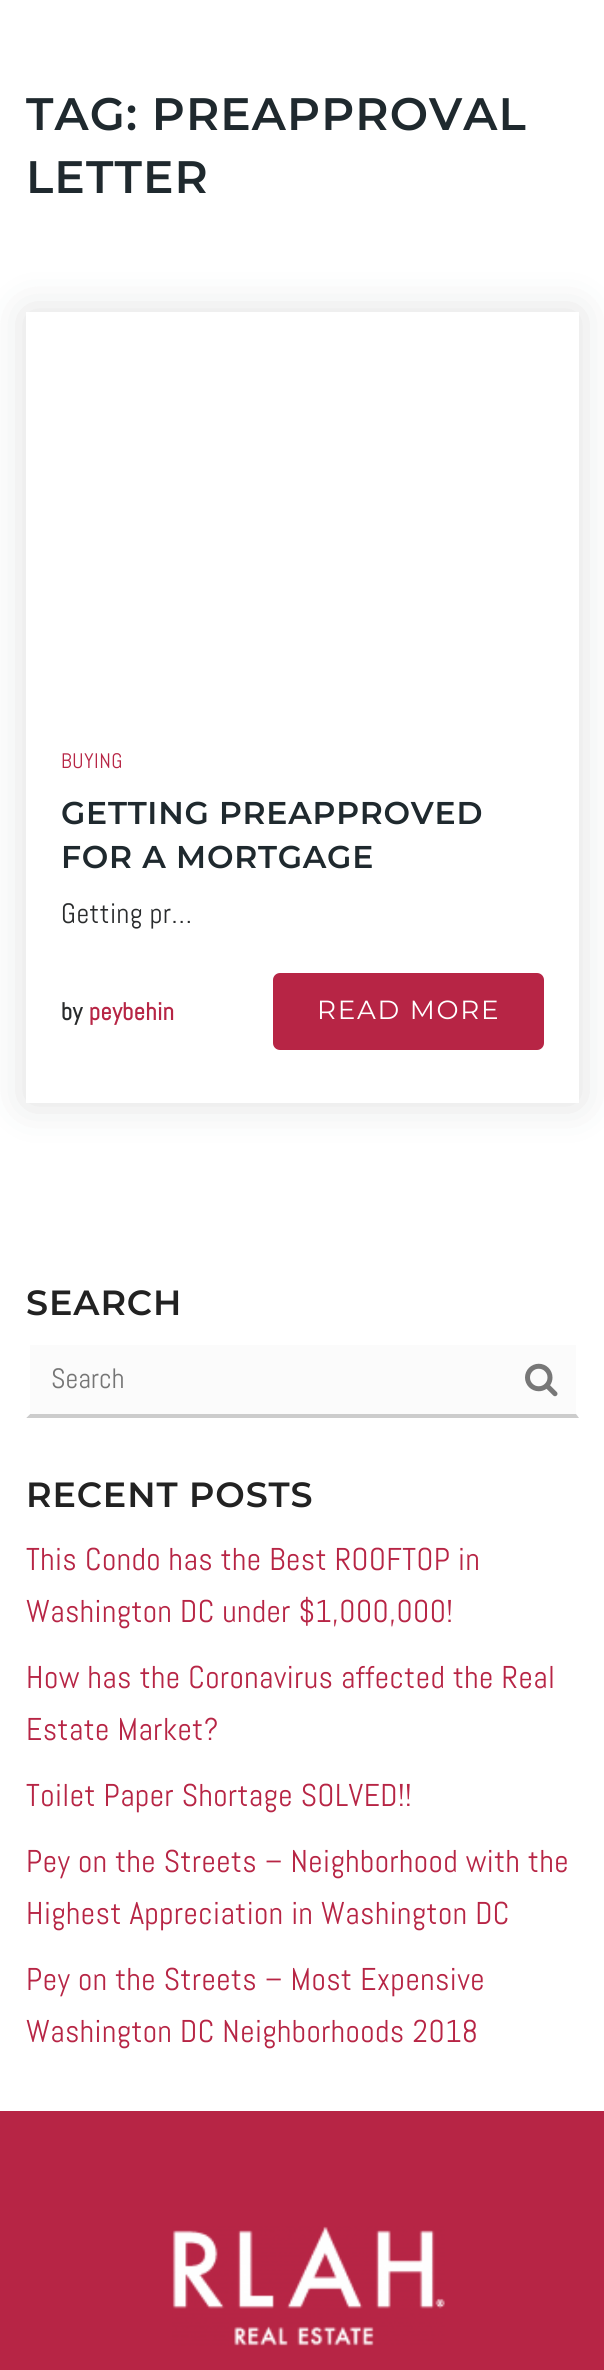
#include <cairo/cairo.h>
#include <math.h>
#include <stddef.h>

static cairo_t *cr;

static void use_color(int r, int g, int b) {
  cairo_set_source_rgb(cr, r / 255.0, g / 255.0, b / 255.0);
}

static void text(double x, double y, const char *s, const char *family, double size, int italic, int bold, int r, int g, int b) {
  cairo_select_font_face(cr, family, italic ? CAIRO_FONT_SLANT_ITALIC : CAIRO_FONT_SLANT_NORMAL,
    bold ? CAIRO_FONT_WEIGHT_BOLD : CAIRO_FONT_WEIGHT_NORMAL);
  cairo_set_font_size(cr, size);
  use_color(r, g, b);
  cairo_move_to(cr, x, y);
  cairo_show_text(cr, s);
}

static void spaced_text(double x, double y, const char *s, double letter, double word) {
  cairo_move_to(cr, x, y);
  while (*s) {
    char ch[5] = {0};
    int n = 0;
    do ch[n++] = *s++; while ((*s & 0xC0) == 0x80);
    cairo_show_text(cr, ch);
    cairo_rel_move_to(cr, letter + word * (*ch == ' '), 0);
  }
}

static void box(double x, double y, double w, double h, int r, int g, int b) {
  use_color(r, g, b);
  cairo_rectangle(cr, x, y, w, h);
  cairo_fill(cr);
}

static void round_rect(double x, double y, double w, double h, double r) {
  cairo_new_sub_path(cr);
  cairo_arc(cr, x + w - r, y + h - r, r, 0, M_PI / 2);
  cairo_arc(cr, x + r, y + h - r, r, M_PI / 2, M_PI);
  cairo_arc(cr, x + r, y + r, r, M_PI, 1.5 * M_PI);
  cairo_arc(cr, x + w - r, y + r, r, 1.5 * M_PI, 2 * M_PI);
  cairo_close_path(cr);
}

static void shadow(double x, double y, double w, double h, double r, double blur, double alpha) {
  cairo_push_group_with_content(cr, CAIRO_CONTENT_ALPHA);
  cairo_set_operator(cr, CAIRO_OPERATOR_SOURCE);
  for (int i = 15; i >= -15 && fmin(w, h) + blur * i / 3 > 0; i -= 2) {
    double e = blur * i / 6;
    cairo_set_source_rgba(cr, 0, 0, 0, alpha * erfc((i - 1) / 8.5) / 2);
    round_rect(x - e, y - e, w + 2 * e, h + 2 * e, fmax(0, fmin(r + e + blur * .6, fmin(w, h) / 2 + e)));
    cairo_fill(cr);
  }
  cairo_pattern_t *soft = cairo_pop_group(cr);
  cairo_mask(cr, soft);
  cairo_pattern_destroy(soft);
}

static void picture(const char *path, double x, double y, double w, double h) {
  cairo_surface_t *image = cairo_image_surface_create_from_png(path);
  cairo_save(cr);
  cairo_set_source_surface(cr, image, x, y);
  cairo_rectangle(cr, x, y, w, h);
  cairo_fill(cr);
  cairo_restore(cr);
  cairo_surface_destroy(image);
}

static void draw(void) {
  use_color(255, 255, 255);
  cairo_paint(cr);
  use_color(41, 43, 44);
  shadow(26, 312, 553, 791, 0, 22, 0.15);
  box(26, 312, 553, 791, 255, 255, 255);
  use_color(183, 37, 69);
  round_rect(274, 974, 269, 75, 6);
  cairo_fill_preserve(cr);
  cairo_stroke(cr);
  box(26, 1345, 553, 73, 251, 251, 251);
  use_color(255, 255, 255);
  cairo_new_path(cr);
  cairo_move_to(cr, 579, 1340);
  cairo_line_to(cr, 579, 1418);
  cairo_line_to(cr, 576, 1414);
  cairo_line_to(cr, 576, 1344);
  cairo_close_path(cr);
  cairo_fill(cr);
  use_color(204, 204, 204);
  cairo_new_path(cr);
  cairo_move_to(cr, 579, 1418);
  cairo_line_to(cr, 26, 1418);
  cairo_line_to(cr, 30, 1414);
  cairo_line_to(cr, 576, 1414);
  cairo_close_path(cr);
  cairo_fill(cr);
  use_color(255, 255, 255);
  cairo_new_path(cr);
  cairo_move_to(cr, 26, 1418);
  cairo_line_to(cr, 26, 1340);
  cairo_line_to(cr, 30, 1344);
  cairo_line_to(cr, 30, 1414);
  cairo_close_path(cr);
  cairo_fill(cr);
  picture("img_01.png", 525, 1363, 33, 34);
  box(0, 2111, 604, 259, 183, 37, 69);
  picture("img_02.png", 172, 2226, 273, 120);
  cairo_select_font_face(cr, "Montserrat SemiBold", CAIRO_FONT_SLANT_NORMAL, CAIRO_FONT_WEIGHT_NORMAL);
  cairo_set_font_size(cr, 45.5);
  use_color(31, 41, 46);
  spaced_text(26, 130, "TAG: PREAPPROVAL", 1.1, 0);
  spaced_text(26, 193, "LETTER", 1.1, 0);
  cairo_select_font_face(cr, "Abel", CAIRO_FONT_SLANT_NORMAL, CAIRO_FONT_WEIGHT_NORMAL);
  cairo_set_font_size(cr, 21);
  use_color(183, 37, 69);
  spaced_text(61, 768, "BUYING", 0.45, 0);
  cairo_select_font_face(cr, "Montserrat SemiBold", CAIRO_FONT_SLANT_NORMAL, CAIRO_FONT_WEIGHT_NORMAL);
  cairo_set_font_size(cr, 31.5);
  use_color(31, 41, 46);
  spaced_text(61, 824, "GETTING PREAPPROVED", 0.75, 0);
  spaced_text(61, 868, "FOR A MORTGAGE", 0.75, 0);
  cairo_select_font_face(cr, "Abel", CAIRO_FONT_SLANT_NORMAL, CAIRO_FONT_WEIGHT_NORMAL);
  cairo_set_font_size(cr, 28);
  use_color(41, 43, 44);
  spaced_text(61, 923, "Getting pr…", 0.45, 0);
  cairo_select_font_face(cr, "Abel", CAIRO_FONT_SLANT_NORMAL, CAIRO_FONT_WEIGHT_BOLD);
  cairo_set_font_size(cr, 24.5);
  spaced_text(61, 1020, "by", 0.45, 0);
  use_color(183, 37, 69);
  spaced_text(89, 1020, "peybehin", 0.45, 0);
  cairo_select_font_face(cr, "Montserrat", CAIRO_FONT_SLANT_NORMAL, CAIRO_FONT_WEIGHT_NORMAL);
  cairo_set_font_size(cr, 26.25);
  use_color(255, 255, 255);
  spaced_text(317, 1019, "READ MORE", 1.75, 0);
  cairo_select_font_face(cr, "Montserrat SemiBold", CAIRO_FONT_SLANT_NORMAL, CAIRO_FONT_WEIGHT_NORMAL);
  cairo_set_font_size(cr, 35);
  use_color(34, 34, 34);
  spaced_text(26, 1315, "SEARCH", 0.9, 0);
  text(51, 1388, "Search", "Abel", 28, 0, 0, 117, 117, 117);
  cairo_select_font_face(cr, "Montserrat SemiBold", CAIRO_FONT_SLANT_NORMAL, CAIRO_FONT_WEIGHT_NORMAL);
  cairo_set_font_size(cr, 35);
  use_color(34, 34, 34);
  spaced_text(26, 1507, "RECENT POSTS", 0.9, 0);
  cairo_select_font_face(cr, "Abel", CAIRO_FONT_SLANT_NORMAL, CAIRO_FONT_WEIGHT_NORMAL);
  cairo_set_font_size(cr, 31.5);
  use_color(183, 37, 69);
  spaced_text(26, 1570, "This Condo has the Best ROOFTOP in", 0.45, 0);
  spaced_text(26, 1622, "Washington DC under $1,000,000!", 0.45, 0);
  spaced_text(26, 1688, "How has the Coronavirus affected the Real", 0.45, 0);
  spaced_text(26, 1740, "Estate Market?", 0.45, 0);
  spaced_text(26, 1806, "Toilet Paper Shortage SOLVED!!", 0.45, 0);
  spaced_text(26, 1872, "Pey on the Streets – Neighborhood with the", 0.45, 0);
  spaced_text(26, 1924, "Highest Appreciation in Washington DC", 0.45, 0);
  spaced_text(26, 1990, "Pey on the Streets – Most Expensive", 0.45, 0);
  spaced_text(26, 2042, "Washington DC Neighborhoods 2018", 0.45, 0);
}

int main(void) {
  cairo_surface_t *surface = cairo_image_surface_create(CAIRO_FORMAT_RGB24, 604, 2370);
  cr = cairo_create(surface);
  cairo_font_options_t *options = cairo_font_options_create();
  cairo_font_options_set_hint_metrics(options, CAIRO_HINT_METRICS_OFF);
  cairo_font_options_set_hint_style(options, CAIRO_HINT_STYLE_NONE);
  cairo_set_font_options(cr, options);
  cairo_set_miter_limit(cr, 4);
  draw();
  cairo_surface_write_to_png(surface, "out.png");
  cairo_font_options_destroy(options);
  cairo_destroy(cr);
  cairo_surface_destroy(surface);
  return 0;
}
